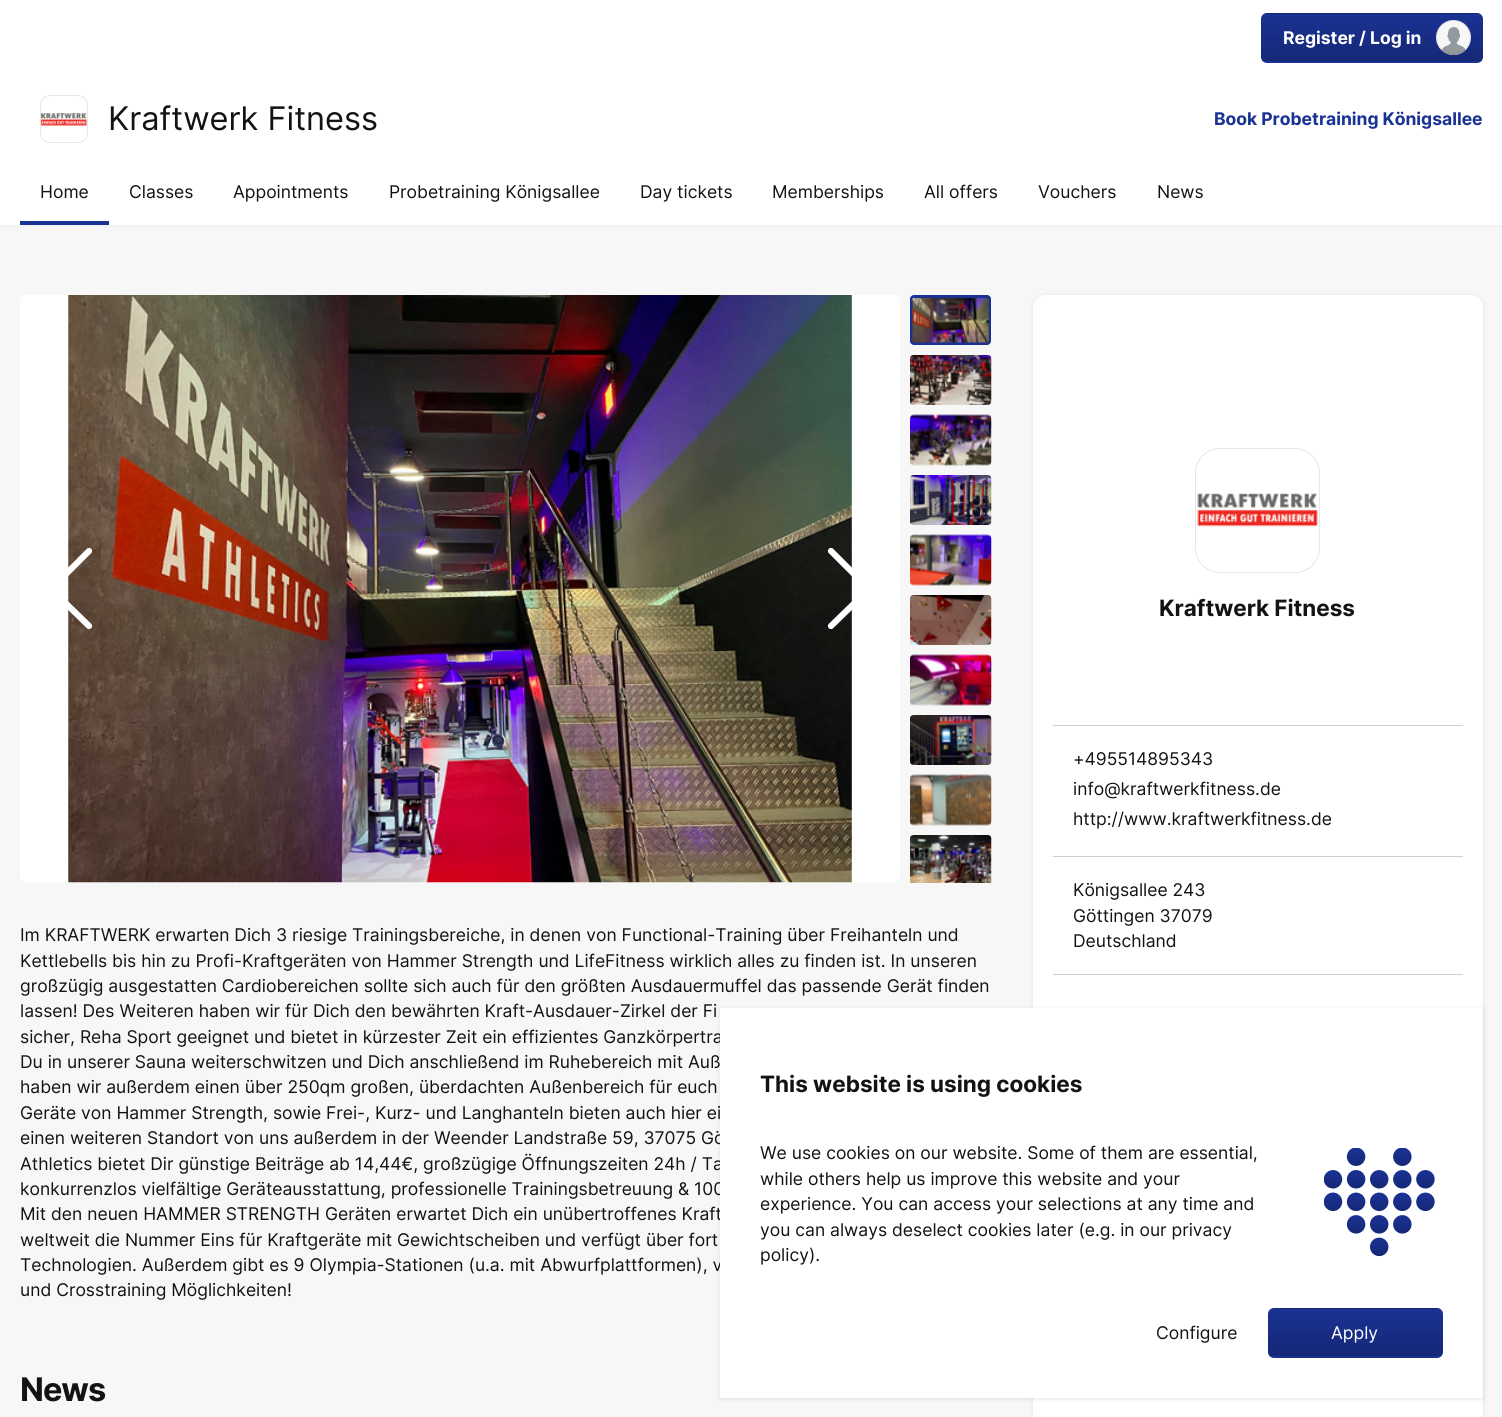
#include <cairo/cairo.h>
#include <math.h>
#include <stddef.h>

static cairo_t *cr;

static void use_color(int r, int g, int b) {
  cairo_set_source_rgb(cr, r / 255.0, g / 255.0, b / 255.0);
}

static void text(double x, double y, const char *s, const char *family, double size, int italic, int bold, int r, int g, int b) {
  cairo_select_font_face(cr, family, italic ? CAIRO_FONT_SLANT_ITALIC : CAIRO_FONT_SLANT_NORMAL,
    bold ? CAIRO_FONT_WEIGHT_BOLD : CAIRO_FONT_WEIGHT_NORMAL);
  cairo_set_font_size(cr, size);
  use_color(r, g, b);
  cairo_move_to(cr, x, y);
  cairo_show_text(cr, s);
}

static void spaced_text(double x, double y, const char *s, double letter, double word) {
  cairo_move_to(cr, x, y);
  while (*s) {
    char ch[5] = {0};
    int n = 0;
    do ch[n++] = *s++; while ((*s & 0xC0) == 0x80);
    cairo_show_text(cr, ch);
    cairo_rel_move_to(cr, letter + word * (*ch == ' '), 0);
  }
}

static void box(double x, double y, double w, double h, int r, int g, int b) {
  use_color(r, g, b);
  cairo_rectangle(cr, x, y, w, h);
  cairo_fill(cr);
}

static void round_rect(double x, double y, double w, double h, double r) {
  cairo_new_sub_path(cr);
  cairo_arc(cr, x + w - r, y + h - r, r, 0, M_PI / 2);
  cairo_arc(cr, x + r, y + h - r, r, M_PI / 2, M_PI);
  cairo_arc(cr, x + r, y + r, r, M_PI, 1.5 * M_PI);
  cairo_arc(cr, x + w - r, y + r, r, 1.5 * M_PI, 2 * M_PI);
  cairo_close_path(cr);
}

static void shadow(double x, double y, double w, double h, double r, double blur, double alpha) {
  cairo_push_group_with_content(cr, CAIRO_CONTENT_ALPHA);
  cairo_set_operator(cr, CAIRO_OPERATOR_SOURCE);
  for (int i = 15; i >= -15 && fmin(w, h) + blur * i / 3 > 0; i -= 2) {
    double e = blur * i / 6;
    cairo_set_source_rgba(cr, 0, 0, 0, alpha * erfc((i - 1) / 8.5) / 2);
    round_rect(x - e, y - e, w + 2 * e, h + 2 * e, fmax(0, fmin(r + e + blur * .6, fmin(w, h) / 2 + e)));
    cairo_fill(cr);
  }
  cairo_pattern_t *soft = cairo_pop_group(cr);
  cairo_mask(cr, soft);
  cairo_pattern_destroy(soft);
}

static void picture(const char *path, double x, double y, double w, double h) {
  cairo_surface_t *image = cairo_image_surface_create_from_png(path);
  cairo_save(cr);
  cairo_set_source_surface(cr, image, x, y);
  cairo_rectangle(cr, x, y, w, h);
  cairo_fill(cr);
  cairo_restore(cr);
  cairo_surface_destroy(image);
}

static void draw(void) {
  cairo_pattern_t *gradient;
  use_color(247, 247, 247);
  cairo_paint(cr);
  use_color(224, 224, 224);
  shadow(0, 75, 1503, 150, 0, 3, 0.5);
  box(0, 0, 1502, 225, 255, 255, 255);
  cairo_save(cr);
  round_rect(1261, 13, 222, 50, 6);
  cairo_clip(cr);
  gradient = cairo_pattern_create_linear(1372, -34, 1372, 14);
  cairo_pattern_add_color_stop_rgba(gradient, 0, 0.102, 0.196, 0.58, 1);
  cairo_pattern_add_color_stop_rgba(gradient, 1, 0.082, 0.157, 0.463, 1);
  cairo_set_source(cr, gradient);
  cairo_pattern_destroy(gradient);
  cairo_rectangle(cr, 1261, 13, 222, 1);
  cairo_fill(cr);
  gradient = cairo_pattern_create_linear(1372, 14, 1372, 61);
  cairo_pattern_add_color_stop_rgba(gradient, 0, 0.102, 0.196, 0.58, 1);
  cairo_pattern_add_color_stop_rgba(gradient, 1, 0.082, 0.157, 0.463, 1);
  cairo_set_source(cr, gradient);
  cairo_pattern_destroy(gradient);
  cairo_rectangle(cr, 1261, 14, 222, 47);
  cairo_fill(cr);
  gradient = cairo_pattern_create_linear(1372, 61, 1372, 109);
  cairo_pattern_add_color_stop_rgba(gradient, 0, 0.102, 0.196, 0.58, 1);
  cairo_pattern_add_color_stop_rgba(gradient, 1, 0.082, 0.157, 0.463, 1);
  cairo_set_source(cr, gradient);
  cairo_pattern_destroy(gradient);
  cairo_rectangle(cr, 1261, 61, 222, 2);
  cairo_fill(cr);
  cairo_restore(cr);
  use_color(247, 247, 247);
  cairo_arc(cr, 1453.5, 37.5, 17.5, 0, 2 * M_PI);
  cairo_fill(cr);
  picture("img_01.png", 1442, 27, 24, 28);
  cairo_arc(cr, 1453.5, 37.5, 17, 0, 2 * M_PI);
  cairo_set_source_rgba(cr, 0, 0, 0, 0.1);
  cairo_set_line_width(cr, 1);
  cairo_stroke(cr);
  picture("img_02.png", 41, 113, 46, 13);
  round_rect(40.5, 95.5, 47, 47, 9.5);
  use_color(230, 230, 230);
  cairo_stroke(cr);
  box(20, 221, 89, 4, 26, 50, 148);
  use_color(0, 0, 0);
  shadow(1033, 296, 450, 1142, 13, 2.5, 0.1);
  use_color(255, 255, 255);
  round_rect(1033, 295, 450, 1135, 13);
  cairo_fill(cr);
  picture("img_03.png", 1197, 493, 121, 34);
  round_rect(1195.5, 448.5, 124, 124, 24.5);
  use_color(230, 230, 230);
  cairo_stroke(cr);
  box(1053, 725, 410, 1, 207, 207, 207);
  box(1053, 856, 410, 1, 207, 207, 207);
  box(1053, 974, 410, 1, 207, 207, 207);
  picture("img_04.png", 20, 295, 880, 588);
  cairo_new_path(cr);
  cairo_move_to(cr, 89, 626);
  cairo_line_to(cr, 51, 589);
  cairo_line_to(cr, 89, 551);
  use_color(255, 255, 255);
  cairo_set_line_width(cr, 6.2);
  cairo_set_line_cap(cr, CAIRO_LINE_CAP_ROUND);
  cairo_set_line_join(cr, CAIRO_LINE_JOIN_ROUND);
  cairo_stroke(cr);
  cairo_new_path(cr);
  cairo_move_to(cr, 831, 626);
  cairo_line_to(cr, 869, 589);
  cairo_line_to(cr, 831, 551);
  cairo_stroke(cr);
  round_rect(911.5, 296.5, 78, 47, 2.5);
  use_color(26, 50, 148);
  cairo_set_line_width(cr, 3);
  cairo_set_line_cap(cr, CAIRO_LINE_CAP_BUTT);
  cairo_set_line_join(cr, CAIRO_LINE_JOIN_MITER);
  cairo_stroke(cr);
  picture("img_05.png", 912, 298, 77, 45);
  picture("img_06.png", 910, 355, 82, 50);
  picture("img_07.png", 910, 414, 82, 52);
  picture("img_08.png", 910, 475, 82, 50);
  picture("img_09.png", 910, 534, 82, 52);
  picture("img_10.png", 910, 595, 82, 50);
  picture("img_11.png", 910, 654, 82, 52);
  picture("img_12.png", 910, 715, 82, 50);
  picture("img_13.png", 910, 774, 82, 52);
  picture("img_14.png", 910, 835, 82, 48);
  use_color(0, 0, 0);
  shadow(720, 1009, 763, 390, 0, 2.5, 0.1);
  text(1283, 44, "Register / Log in", "Inter", 17.5, 0, 1, 255, 255, 255);
  text(108, 130, "Kraftwerk Fitness", "Inter", 32.5, 0, 0, 19, 19, 19);
  text(1214, 125, "Book Probetraining Königsallee", "Inter", 17.5, 0, 1, 26, 50, 148);
  text(40, 198, "Home", "Inter", 17.5, 0, 0, 19, 19, 19);
  text(129, 198, "Classes", "Inter", 17.5, 0, 0, 19, 19, 19);
  text(233, 198, "Appointments", "Inter", 17.5, 0, 0, 19, 19, 19);
  text(389, 198, "Probetraining Königsallee", "Inter", 17.5, 0, 0, 19, 19, 19);
  text(640, 198, "Day tickets", "Inter", 17.5, 0, 0, 19, 19, 19);
  text(772, 198, "Memberships", "Inter", 17.5, 0, 0, 19, 19, 19);
  text(924, 198, "All offers", "Inter", 17.5, 0, 0, 19, 19, 19);
  text(1038, 198, "Vouchers", "Inter", 17.5, 0, 0, 19, 19, 19);
  text(1157, 198, "News", "Inter", 17.5, 0, 0, 19, 19, 19);
  text(1159, 616, "Kraftwerk Fitness", "Inter", 22.5, 0, 1, 19, 19, 19);
  text(1073, 765, "+495514895343", "Inter", 17.5, 0, 0, 19, 19, 19);
  text(1073, 795, "info@kraftwerkfitness.de", "Inter", 17.5, 0, 0, 19, 19, 19);
  text(1073, 825, "http://www.kraftwerkfitness.de", "Inter", 17.5, 0, 0, 19, 19, 19);
  text(1073, 896, "Königsallee 243", "Inter", 17.5, 0, 0, 19, 19, 19);
  text(1073, 922, "Göttingen 37079", "Inter", 17.5, 0, 0, 19, 19, 19);
  text(1073, 947, "Deutschland", "Inter", 17.5, 0, 0, 19, 19, 19);
  text(20, 941, "Im KRAFTWERK erwarten Dich 3 riesige Trainingsbereiche, in denen von Functional-Training über Freihanteln und", "Inter", 17.5, 0, 0, 19, 19, 19);
  text(20, 967, "Kettlebells bis hin zu Profi-Kraftgeräten von Hammer Strength und LifeFitness wirklich alles zu finden ist. In unseren", "Inter", 17.5, 0, 0, 19, 19, 19);
  text(20, 992, "großzügig ausgestatten Cardiobereichen sollte sich auch für den größten Ausdauermuffel das passende Gerät finden", "Inter", 17.5, 0, 0, 19, 19, 19);
  text(20, 1017, "lassen! Des Weiteren haben wir für Dich den bewährten Kraft-Ausdauer-Zirkel der Fi", "Inter", 17.5, 0, 0, 19, 19, 19);
  text(20, 1043, "sicher, Reha Sport geeignet und bietet in kürzester Zeit ein effizientes Ganzkörpertra", "Inter", 17.5, 0, 0, 19, 19, 19);
  text(20, 1068, "Du in unserer Sauna weiterschwitzen und Dich anschließend im Ruhebereich mit Auß", "Inter", 17.5, 0, 0, 19, 19, 19);
  text(20, 1093, "haben wir außerdem einen über 250qm großen, überdachten Außenbereich für euch", "Inter", 17.5, 0, 0, 19, 19, 19);
  text(20, 1119, "Geräte von Hammer Strength, sowie Frei-, Kurz- und Langhanteln bieten auch hier ei", "Inter", 17.5, 0, 0, 19, 19, 19);
  text(20, 1144, "einen weiteren Standort von uns außerdem in der Weender Landstraße 59, 37075 Gö", "Inter", 17.5, 0, 0, 19, 19, 19);
  text(20, 1170, "Athletics bietet Dir günstige Beiträge ab 14,44€, großzügige Öffnungszeiten 24h / Ta", "Inter", 17.5, 0, 0, 19, 19, 19);
  text(20, 1195, "konkurrenzlos vielfältige Geräteausstattung, professionelle Trainingsbetreuung & 100", "Inter", 17.5, 0, 0, 19, 19, 19);
  text(20, 1220, "Mit den neuen HAMMER STRENGTH Geräten erwartet Dich ein unübertroffenes Kraft", "Inter", 17.5, 0, 0, 19, 19, 19);
  text(20, 1246, "weltweit die Nummer Eins für Kraftgeräte mit Gewichtscheiben und verfügt über fort", "Inter", 17.5, 0, 0, 19, 19, 19);
  text(20, 1271, "Technologien. Außerdem gibt es 9 Olympia-Stationen (u.a. mit Abwurfplattformen), v", "Inter", 17.5, 0, 0, 19, 19, 19);
  text(20, 1296, "und Crosstraining Möglichkeiten!", "Inter", 17.5, 0, 0, 19, 19, 19);
  cairo_select_font_face(cr, "Inter", CAIRO_FONT_SLANT_NORMAL, CAIRO_FONT_WEIGHT_BOLD);
  cairo_set_font_size(cr, 32.5);
  spaced_text(20, 1401, "News", -1, 0);
  box(720, 1008, 763, 390, 255, 255, 255);
  text(760, 1092, "This website is using cookies", "Inter", 22.5, 0, 1, 19, 19, 19);
  text(760, 1159, "We use cookies on our website. Some of them are essential,", "Inter", 17.5, 0, 0, 19, 19, 19);
  text(760, 1185, "while others help us improve this website and your", "Inter", 17.5, 0, 0, 19, 19, 19);
  text(760, 1210, "experience. You can access your selections at any time and", "Inter", 17.5, 0, 0, 19, 19, 19);
  text(760, 1236, "you can always deselect cookies later (e.g. in our privacy", "Inter", 17.5, 0, 0, 19, 19, 19);
  text(760, 1261, "policy).", "Inter", 17.5, 0, 0, 19, 19, 19);
  picture("img_15.png", 1324, 1148, 111, 109);
  text(1156, 1339, "Configure", "Inter", 17.5, 0, 0, 19, 19, 19);
  cairo_save(cr);
  round_rect(1268, 1308, 175, 50, 6);
  cairo_clip(cr);
  gradient = cairo_pattern_create_linear(1355, 1261, 1355, 1309);
  cairo_pattern_add_color_stop_rgba(gradient, 0, 0.102, 0.196, 0.58, 1);
  cairo_pattern_add_color_stop_rgba(gradient, 1, 0.082, 0.157, 0.463, 1);
  cairo_set_source(cr, gradient);
  cairo_pattern_destroy(gradient);
  cairo_rectangle(cr, 1268, 1308, 175, 1);
  cairo_fill(cr);
  gradient = cairo_pattern_create_linear(1355, 1309, 1355, 1356);
  cairo_pattern_add_color_stop_rgba(gradient, 0, 0.102, 0.196, 0.58, 1);
  cairo_pattern_add_color_stop_rgba(gradient, 1, 0.082, 0.157, 0.463, 1);
  cairo_set_source(cr, gradient);
  cairo_pattern_destroy(gradient);
  cairo_rectangle(cr, 1268, 1309, 175, 47);
  cairo_fill(cr);
  gradient = cairo_pattern_create_linear(1355, 1356, 1355, 1404);
  cairo_pattern_add_color_stop_rgba(gradient, 0, 0.102, 0.196, 0.58, 1);
  cairo_pattern_add_color_stop_rgba(gradient, 1, 0.082, 0.157, 0.463, 1);
  cairo_set_source(cr, gradient);
  cairo_pattern_destroy(gradient);
  cairo_rectangle(cr, 1268, 1356, 175, 2);
  cairo_fill(cr);
  cairo_restore(cr);
  text(1331, 1339, "Apply", "Inter", 17.5, 0, 0, 255, 255, 255);
}

int main(void) {
  cairo_surface_t *surface = cairo_image_surface_create(CAIRO_FORMAT_RGB24, 1502, 1417);
  cr = cairo_create(surface);
  cairo_font_options_t *options = cairo_font_options_create();
  cairo_font_options_set_hint_metrics(options, CAIRO_HINT_METRICS_OFF);
  cairo_font_options_set_hint_style(options, CAIRO_HINT_STYLE_NONE);
  cairo_set_font_options(cr, options);
  cairo_set_miter_limit(cr, 4);
  draw();
  cairo_surface_write_to_png(surface, "out.png");
  cairo_font_options_destroy(options);
  cairo_destroy(cr);
  cairo_surface_destroy(surface);
  return 0;
}
